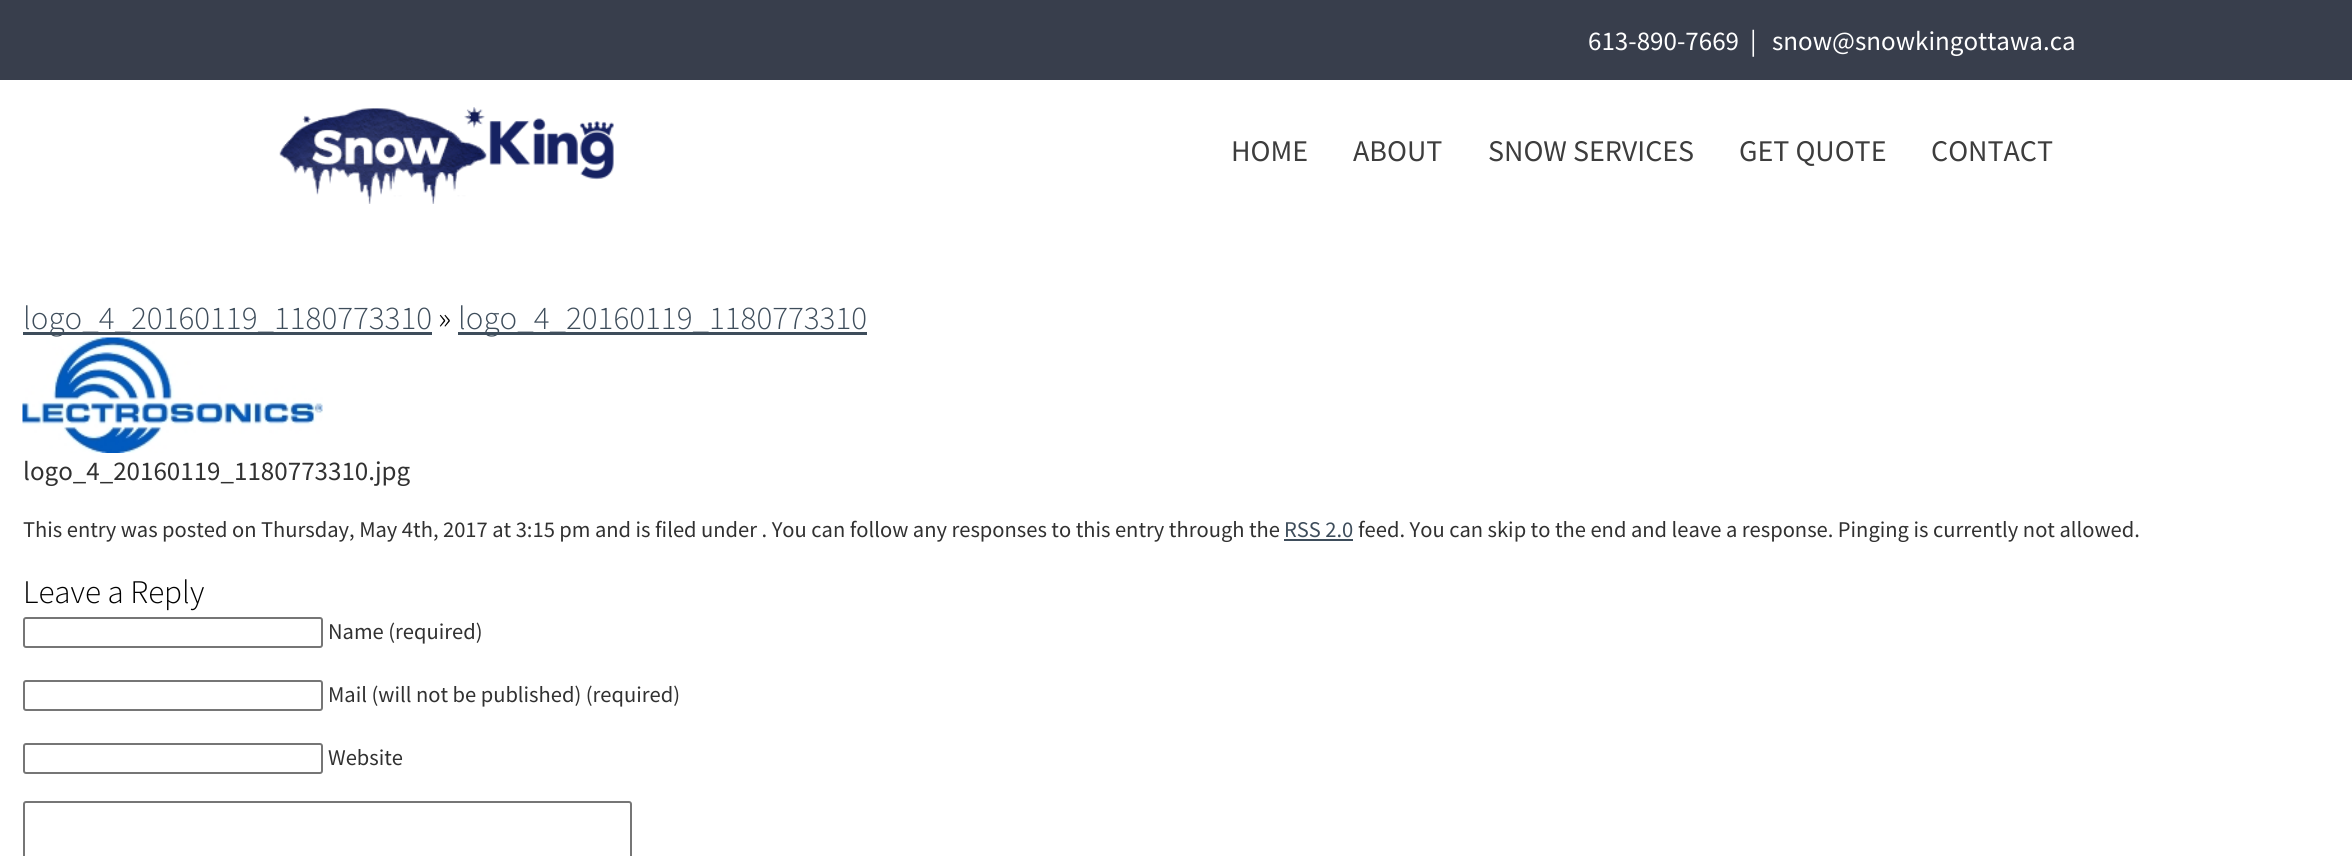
#include <cairo/cairo.h>
#include <math.h>
#include <stddef.h>

static cairo_t *cr;

static void use_color(int r, int g, int b) {
  cairo_set_source_rgb(cr, r / 255.0, g / 255.0, b / 255.0);
}

static void text(double x, double y, const char *s, const char *family, double size, int italic, int bold, int r, int g, int b) {
  cairo_select_font_face(cr, family, italic ? CAIRO_FONT_SLANT_ITALIC : CAIRO_FONT_SLANT_NORMAL,
    bold ? CAIRO_FONT_WEIGHT_BOLD : CAIRO_FONT_WEIGHT_NORMAL);
  cairo_set_font_size(cr, size);
  use_color(r, g, b);
  cairo_move_to(cr, x, y);
  cairo_show_text(cr, s);
}

static void box(double x, double y, double w, double h, int r, int g, int b) {
  use_color(r, g, b);
  cairo_rectangle(cr, x, y, w, h);
  cairo_fill(cr);
}

static void round_rect(double x, double y, double w, double h, double r) {
  cairo_new_sub_path(cr);
  cairo_arc(cr, x + w - r, y + h - r, r, 0, M_PI / 2);
  cairo_arc(cr, x + r, y + h - r, r, M_PI / 2, M_PI);
  cairo_arc(cr, x + r, y + r, r, M_PI, 1.5 * M_PI);
  cairo_arc(cr, x + w - r, y + r, r, 1.5 * M_PI, 2 * M_PI);
  cairo_close_path(cr);
}

static void picture(const char *path, double x, double y, double w, double h) {
  cairo_surface_t *image = cairo_image_surface_create_from_png(path);
  cairo_save(cr);
  cairo_set_source_surface(cr, image, x, y);
  cairo_rectangle(cr, x, y, w, h);
  cairo_fill(cr);
  cairo_restore(cr);
  cairo_surface_destroy(image);
}

static void draw(void) {
  use_color(255, 255, 255);
  cairo_paint(cr);
  box(0, 0, 2352, 80, 56, 62, 76);
  picture("img_01.png", 279, 107, 335, 97);
  box(23, 332, 409, 3, 62, 77, 91);
  box(458, 332, 409, 3, 62, 77, 91);
  picture("img_02.png", 22, 337, 301, 116);
  box(1284, 539, 69, 2, 62, 77, 91);
  round_rect(24, 618, 298, 29, 2);
  use_color(118, 118, 118);
  cairo_stroke(cr);
  round_rect(24, 681, 298, 29, 2);
  cairo_stroke(cr);
  round_rect(24, 744, 298, 29, 2);
  cairo_stroke(cr);
  round_rect(24, 802, 607, 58, 2);
  cairo_stroke(cr);
  text(1588, 50, "613-890-7669", "Source Sans Pro", 27, 0, 0, 255, 255, 255);
  text(1750, 50, "|", "Source Sans Pro", 27, 0, 0, 255, 255, 255);
  text(1772, 50, "snow@snowkingottawa.ca", "Source Sans Pro", 27, 0, 0, 255, 255, 255);
  text(1231, 161, "HOME", "Source Sans Pro", 30, 0, 0, 61, 61, 61);
  text(1353, 161, "ABOUT", "Source Sans Pro", 30, 0, 0, 61, 61, 61);
  text(1488, 161, "SNOW SERVICES", "Source Sans Pro", 30, 0, 0, 61, 61, 61);
  text(1739, 161, "GET QUOTE", "Source Sans Pro", 30, 0, 0, 61, 61, 61);
  text(1931, 161, "CONTACT", "Source Sans Pro", 30, 0, 0, 61, 61, 61);
  text(23, 329, "logo_4_20160119_1180773310", "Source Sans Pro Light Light", 33, 0, 0, 62, 77, 91);
  text(438, 329, "»", "Source Sans Pro Light Light", 33, 0, 0, 0, 0, 0);
  text(458, 329, "logo_4_20160119_1180773310", "Source Sans Pro Light Light", 33, 0, 0, 62, 77, 91);
  text(23, 480, "logo_4_20160119_1180773310.jpg", "Source Sans Pro", 27, 0, 0, 49, 49, 49);
  text(23, 537, "This entry was posted on Thursday, May 4th, 2017 at 3:15 pm and is filed under . You can follow any responses to this entry through the", "Source Sans Pro", 22.5, 0, 0, 49, 49, 49);
  text(1284, 537, "RSS 2.0", "Source Sans Pro", 22.5, 0, 0, 62, 77, 91);
  text(1358, 537, "feed. You can skip to the end and leave a response. Pinging is currently not allowed.", "Source Sans Pro", 22.5, 0, 0, 49, 49, 49);
  text(23, 603, "Leave a Reply", "Source Sans Pro Light Light", 33, 0, 0, 0, 0, 0);
  text(328, 639, "Name (required)", "Source Sans Pro", 22.5, 0, 0, 49, 49, 49);
  text(328, 702, "Mail (will not be published) (required)", "Source Sans Pro", 22.5, 0, 0, 49, 49, 49);
  text(328, 765, "Website", "Source Sans Pro", 22.5, 0, 0, 49, 49, 49);
}

int main(void) {
  cairo_surface_t *surface = cairo_image_surface_create(CAIRO_FORMAT_RGB24, 2352, 856);
  cr = cairo_create(surface);
  cairo_font_options_t *options = cairo_font_options_create();
  cairo_font_options_set_hint_metrics(options, CAIRO_HINT_METRICS_OFF);
  cairo_font_options_set_hint_style(options, CAIRO_HINT_STYLE_NONE);
  cairo_set_font_options(cr, options);
  cairo_set_miter_limit(cr, 4);
  draw();
  cairo_surface_write_to_png(surface, "out.png");
  cairo_font_options_destroy(options);
  cairo_destroy(cr);
  cairo_surface_destroy(surface);
  return 0;
}
